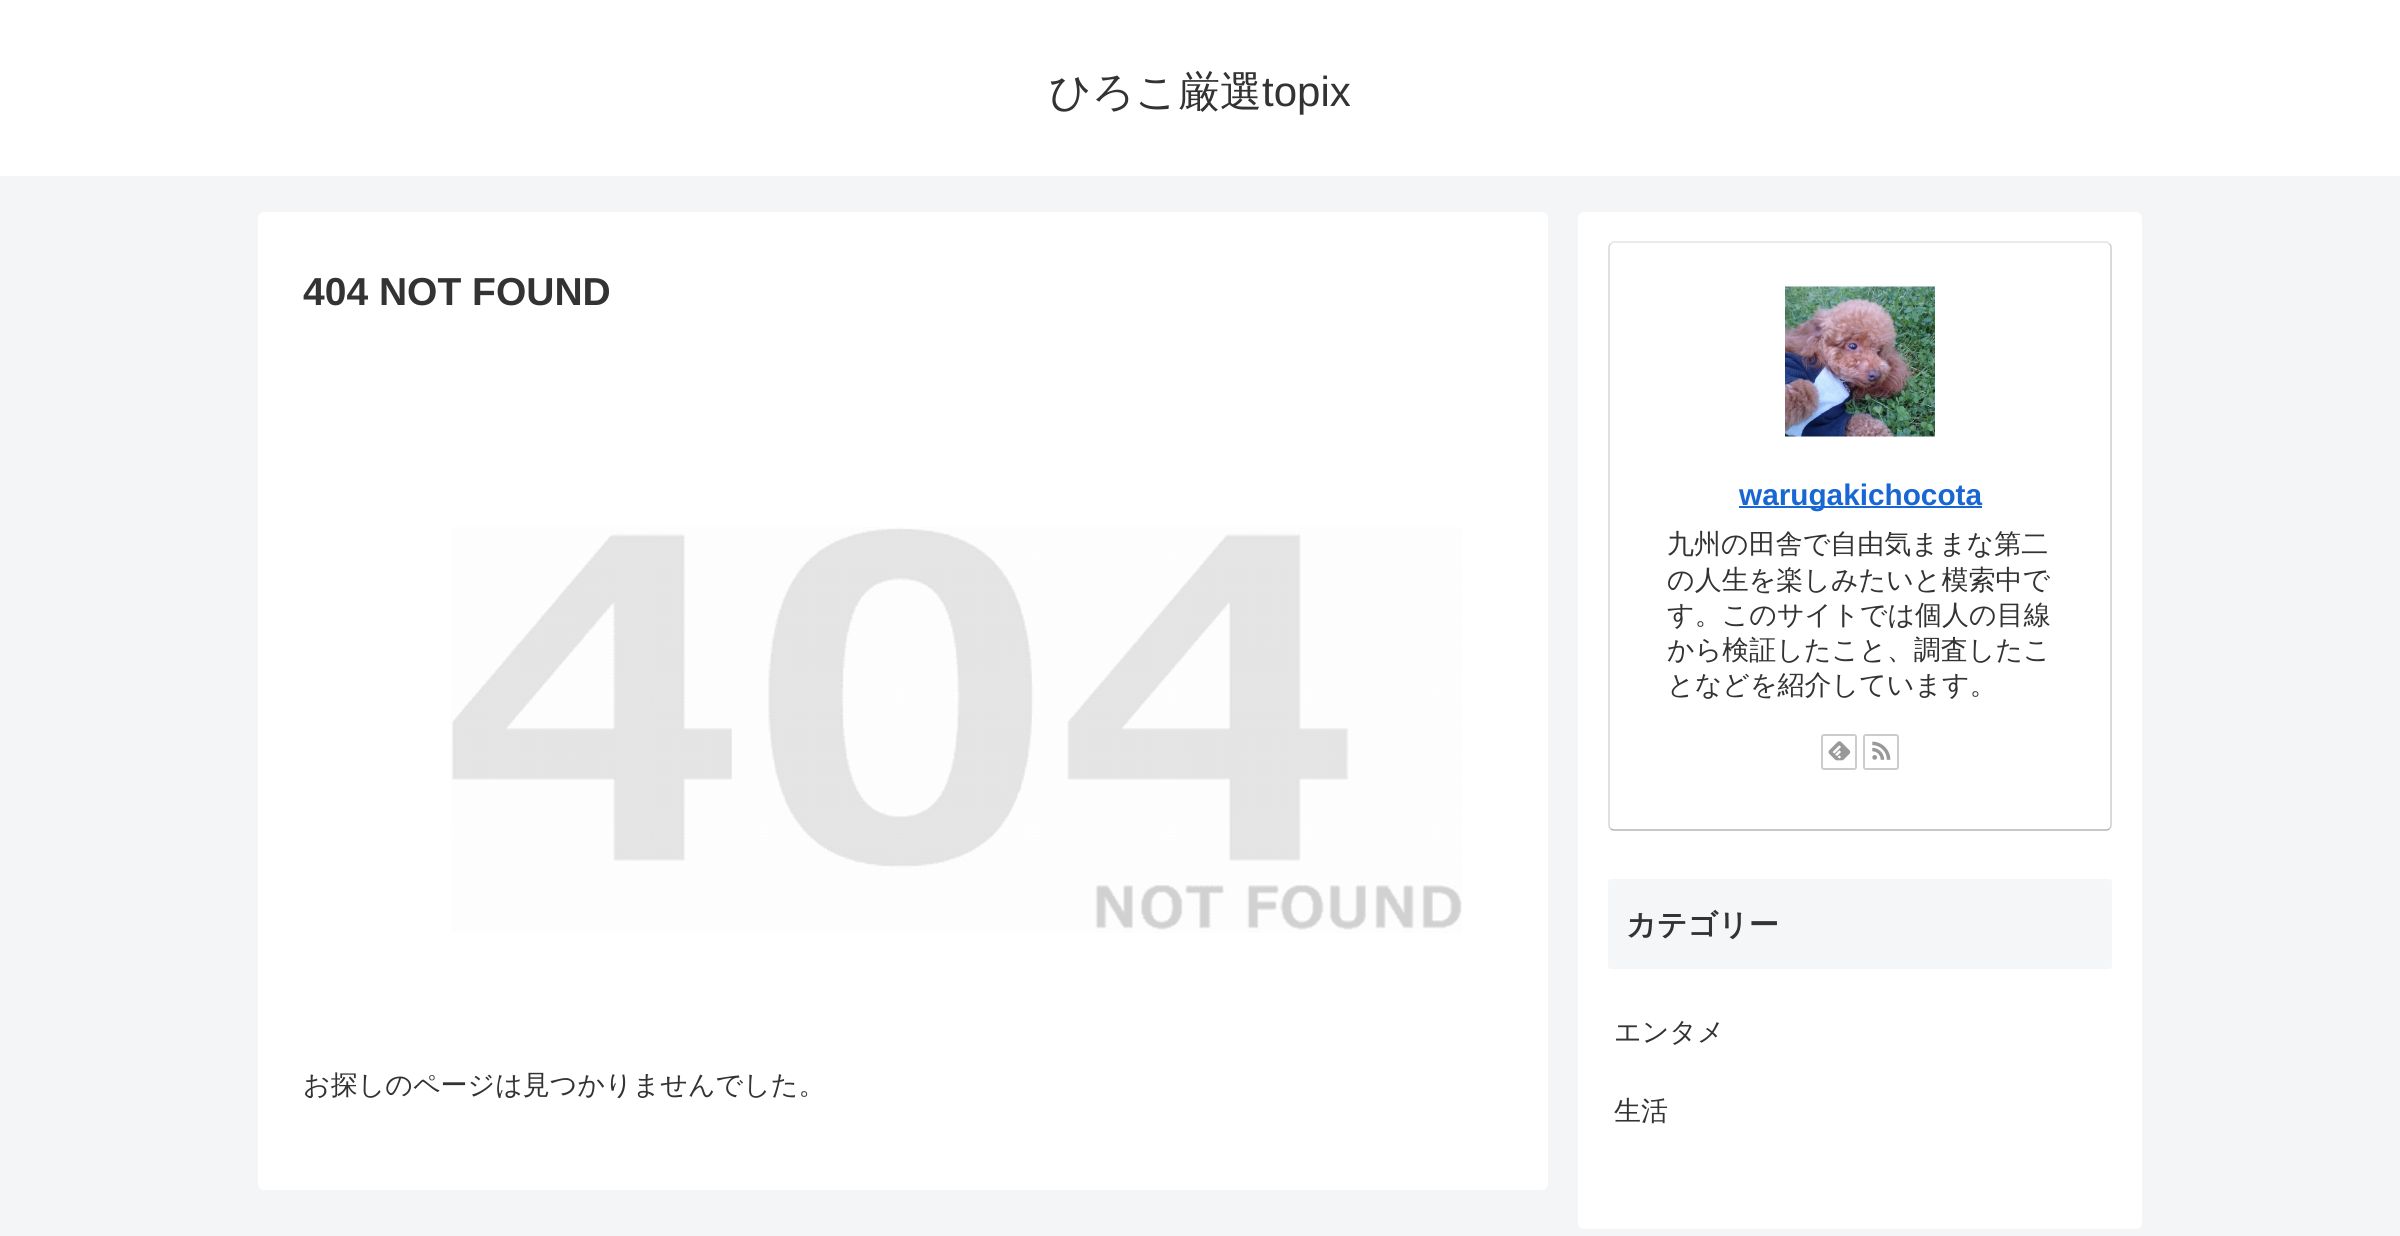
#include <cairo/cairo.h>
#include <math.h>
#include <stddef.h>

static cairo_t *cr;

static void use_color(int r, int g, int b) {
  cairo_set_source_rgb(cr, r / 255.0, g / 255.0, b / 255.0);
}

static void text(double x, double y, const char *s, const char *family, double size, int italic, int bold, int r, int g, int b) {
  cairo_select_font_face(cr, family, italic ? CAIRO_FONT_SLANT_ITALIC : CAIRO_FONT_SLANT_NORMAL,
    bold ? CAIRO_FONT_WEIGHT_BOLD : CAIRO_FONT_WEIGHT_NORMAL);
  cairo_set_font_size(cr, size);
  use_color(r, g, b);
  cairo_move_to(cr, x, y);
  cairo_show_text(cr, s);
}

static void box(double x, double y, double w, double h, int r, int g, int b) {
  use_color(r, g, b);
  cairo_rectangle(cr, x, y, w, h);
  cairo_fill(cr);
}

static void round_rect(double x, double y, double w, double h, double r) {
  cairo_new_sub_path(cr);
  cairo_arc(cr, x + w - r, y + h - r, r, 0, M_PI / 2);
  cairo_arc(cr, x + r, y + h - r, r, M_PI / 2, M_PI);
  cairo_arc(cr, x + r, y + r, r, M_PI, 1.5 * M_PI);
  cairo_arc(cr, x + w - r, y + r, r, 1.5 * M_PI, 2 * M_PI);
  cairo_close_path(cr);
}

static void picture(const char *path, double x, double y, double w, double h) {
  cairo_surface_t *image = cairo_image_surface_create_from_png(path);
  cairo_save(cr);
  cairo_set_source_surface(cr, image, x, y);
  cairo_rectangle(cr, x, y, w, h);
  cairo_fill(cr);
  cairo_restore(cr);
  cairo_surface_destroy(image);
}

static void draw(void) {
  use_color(244, 245, 247);
  cairo_paint(cr);
  box(0, 0, 2400, 176, 255, 255, 255);
  round_rect(258, 212, 1290, 978, 6);
  cairo_fill(cr);
  picture("img_01.png", 451, 527, 1011, 406);
  round_rect(1578, 212, 564, 1017, 6);
  cairo_fill(cr);
  cairo_new_path(cr);
  cairo_move_to(cr, 1610.5, 244);
  cairo_curve_to(cr, 1611.5, 243, 1612.5, 242, 1614, 242);
  cairo_line_to(cr, 2106, 242);
  cairo_curve_to(cr, 2107.5, 242, 2108.5, 243, 2109.5, 244);
  use_color(227, 227, 227);
  cairo_set_line_width(cr, 1.5);
  cairo_stroke(cr);
  cairo_new_path(cr);
  cairo_move_to(cr, 2109.5, 244);
  cairo_curve_to(cr, 2110.5, 245, 2111, 246, 2111, 247.5);
  cairo_line_to(cr, 2111, 825);
  cairo_curve_to(cr, 2111, 826.5, 2110.5, 827.5, 2109.5, 828.5);
  use_color(206, 206, 206);
  cairo_stroke(cr);
  cairo_new_path(cr);
  cairo_move_to(cr, 2109.5, 828.5);
  cairo_curve_to(cr, 2108.5, 829.5, 2107.5, 830, 2106, 830);
  cairo_line_to(cr, 1614, 830);
  cairo_curve_to(cr, 1612.5, 830, 1611.5, 829.5, 1610.5, 828.5);
  use_color(180, 180, 180);
  cairo_stroke(cr);
  cairo_new_path(cr);
  cairo_move_to(cr, 1610.5, 828.5);
  cairo_curve_to(cr, 1609.5, 827.5, 1609, 826.5, 1609, 825);
  cairo_line_to(cr, 1609, 247.5);
  cairo_curve_to(cr, 1609, 246, 1609.5, 245, 1610.5, 244);
  use_color(214, 214, 214);
  cairo_stroke(cr);
  picture("img_02.png", 1785, 286, 150, 151);
  box(1739, 506, 243, 2, 25, 103, 210);
  round_rect(1822, 735, 34, 34, 2);
  use_color(204, 204, 204);
  cairo_set_line_width(cr, 2);
  cairo_stroke(cr);
  picture("img_03.png", 1828, 741, 23, 20);
  round_rect(1864, 735, 34, 34, 2);
  cairo_stroke(cr);
  picture("img_04.png", 1872, 741, 19, 19);
  use_color(245, 246, 247);
  round_rect(1608, 879, 504, 90, 3);
  cairo_fill(cr);
  text(1049, 106, "ひろこ厳選", "WenQuanYi Zen Hei Medium", 42, 0, 0, 51, 51, 51);
  text(1262, 106, "topix", "Liberation Sans", 42, 0, 0, 51, 51, 51);
  text(303, 305, "404 NOT FOUND", "Liberation Sans", 39, 0, 1, 51, 51, 51);
  text(303, 1094, "お探しのページは見つかりませんでした。", "WenQuanYi Zen Hei Medium", 27, 0, 0, 51, 51, 51);
  text(1739, 505, "warugakichocota", "Liberation Sans", 29.75, 0, 1, 25, 103, 210);
  text(1667, 553, "九州の田舎で自由気ままな第二", "WenQuanYi Zen Hei Medium", 27, 0, 0, 51, 51, 51);
  text(1667, 589, "の人生を楽しみたいと模索中で", "WenQuanYi Zen Hei Medium", 27, 0, 0, 51, 51, 51);
  text(1667, 624, "す。このサイトでは個人の目線", "WenQuanYi Zen Hei Medium", 27, 0, 0, 51, 51, 51);
  text(1667, 659, "から検証したこと、調査したこ", "WenQuanYi Zen Hei Medium", 27, 0, 0, 51, 51, 51);
  text(1667, 694, "となどを紹介しています。", "WenQuanYi Zen Hei Medium", 27, 0, 0, 51, 51, 51);
  text(1626, 935, "カテゴリー", "WenQuanYi Zen Hei", 30, 0, 1, 51, 51, 51);
  text(1614, 1041, "エンタメ", "WenQuanYi Zen Hei Medium", 27, 0, 0, 51, 51, 51);
  text(1614, 1120, "生活", "WenQuanYi Zen Hei Medium", 27, 0, 0, 51, 51, 51);
}

int main(void) {
  cairo_surface_t *surface = cairo_image_surface_create(CAIRO_FORMAT_RGB24, 2400, 1236);
  cr = cairo_create(surface);
  cairo_font_options_t *options = cairo_font_options_create();
  cairo_font_options_set_hint_metrics(options, CAIRO_HINT_METRICS_OFF);
  cairo_font_options_set_hint_style(options, CAIRO_HINT_STYLE_NONE);
  cairo_set_font_options(cr, options);
  cairo_set_miter_limit(cr, 4);
  draw();
  cairo_surface_write_to_png(surface, "out.png");
  cairo_font_options_destroy(options);
  cairo_destroy(cr);
  cairo_surface_destroy(surface);
  return 0;
}
